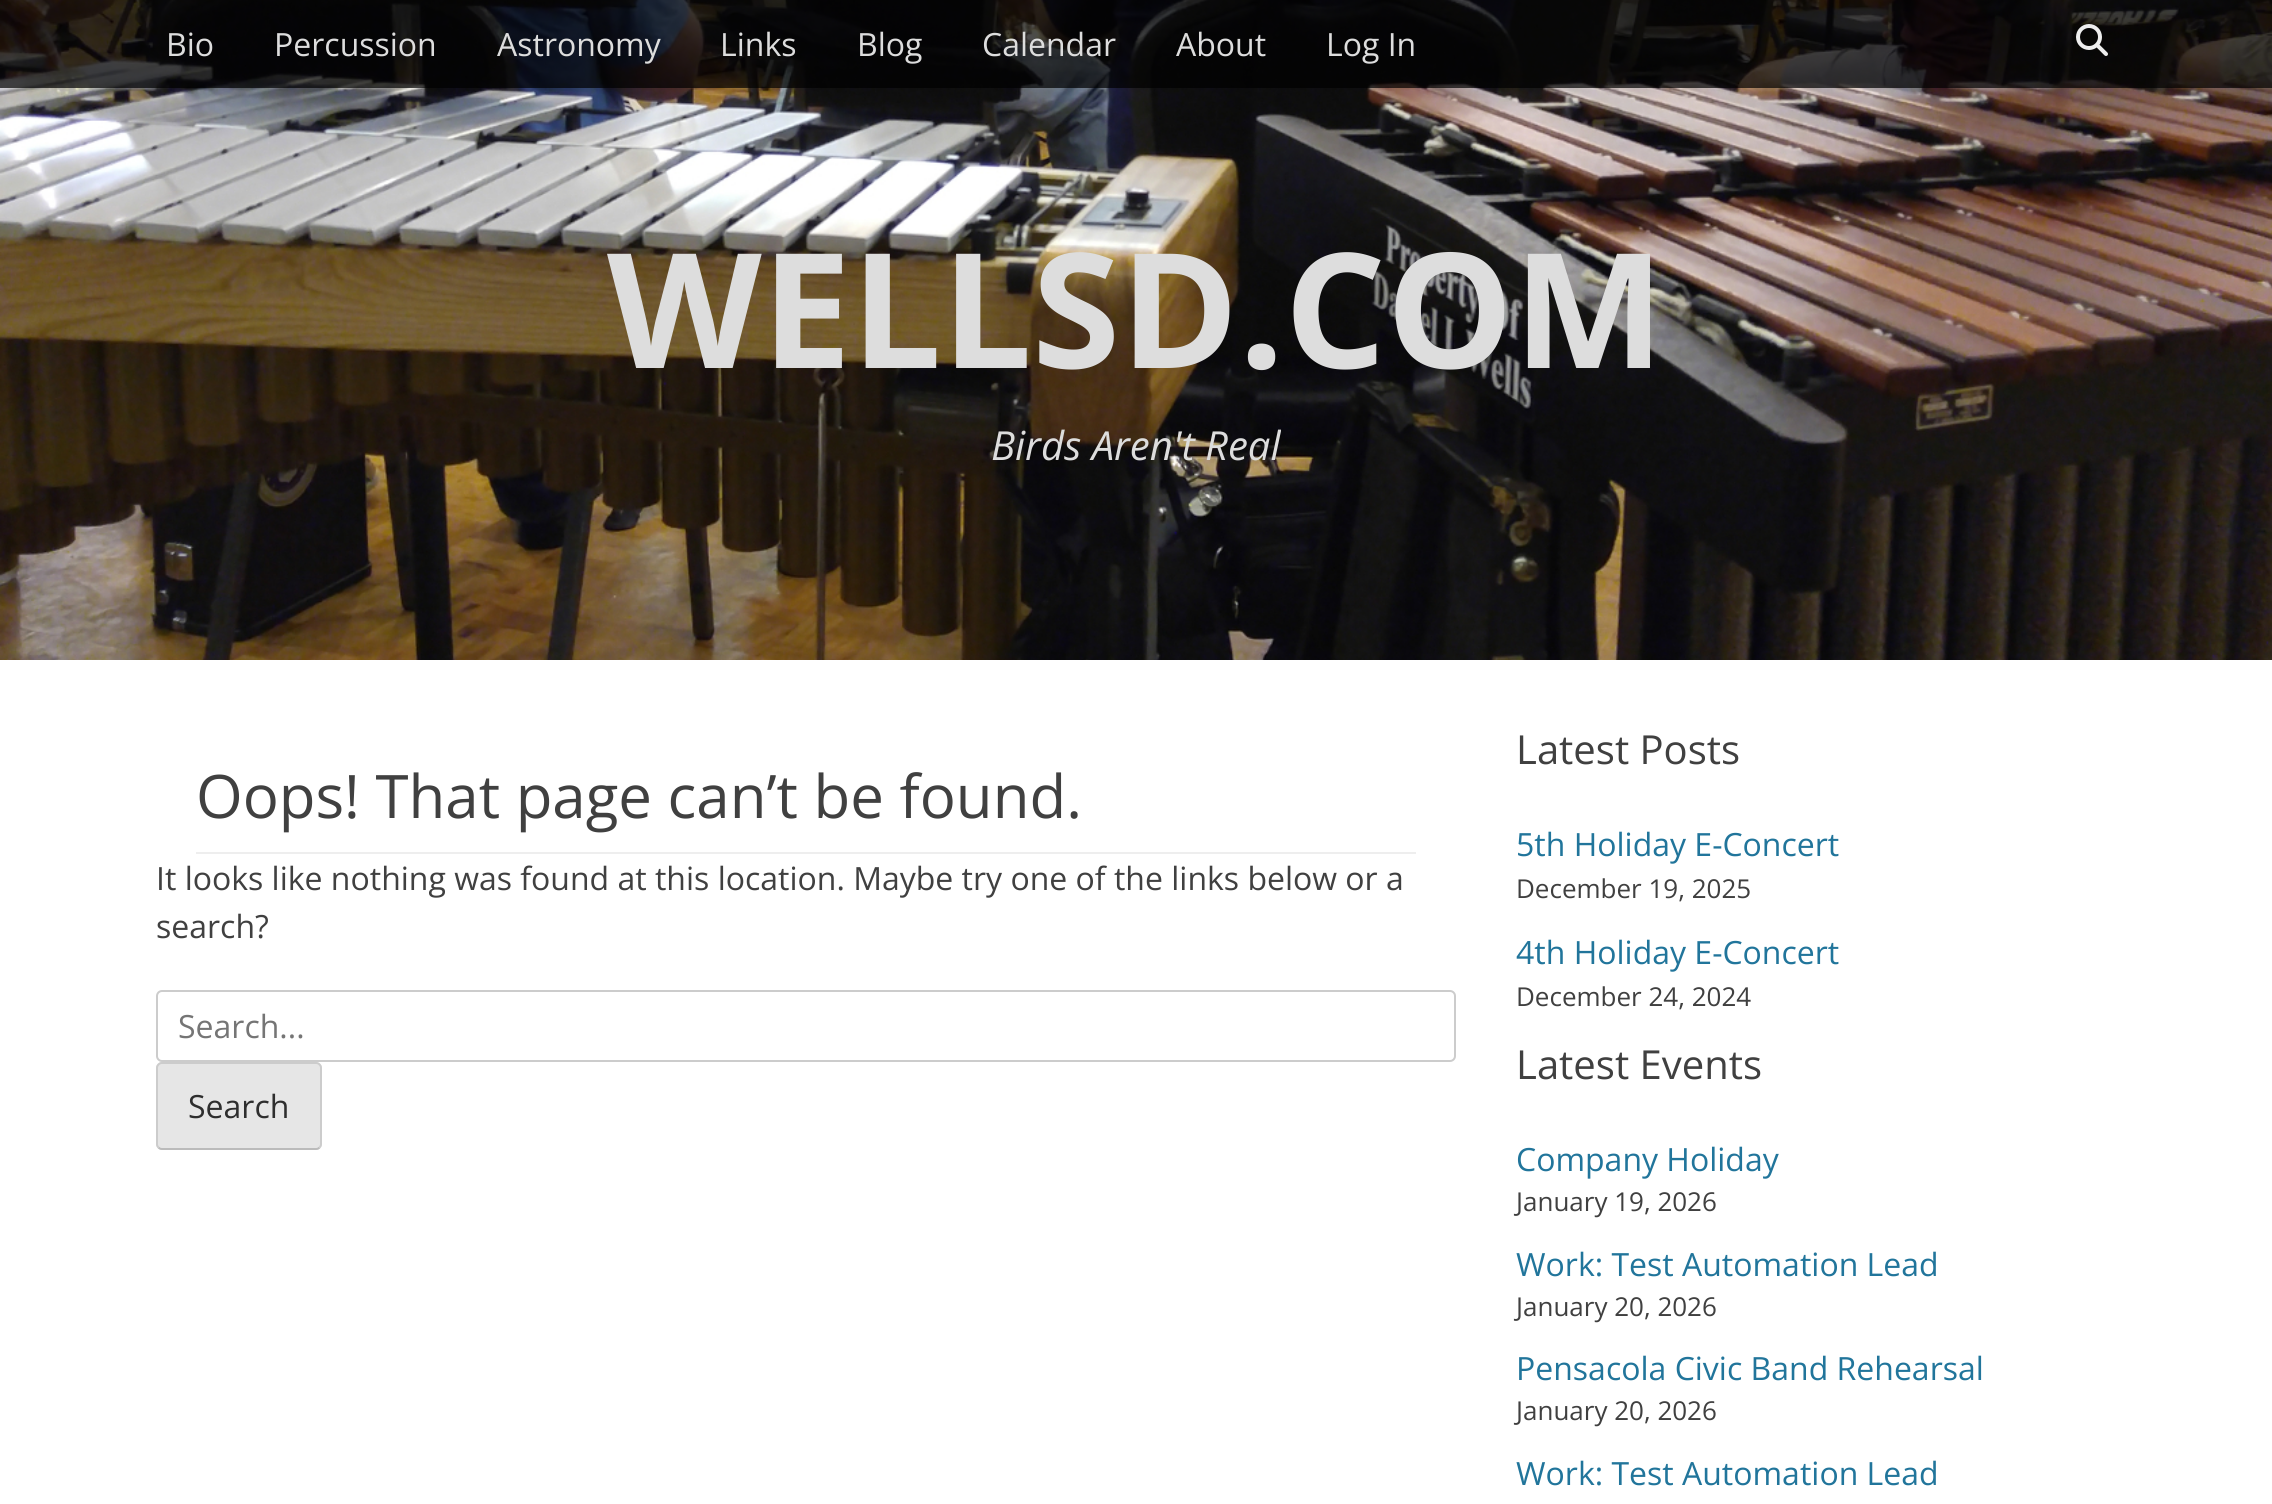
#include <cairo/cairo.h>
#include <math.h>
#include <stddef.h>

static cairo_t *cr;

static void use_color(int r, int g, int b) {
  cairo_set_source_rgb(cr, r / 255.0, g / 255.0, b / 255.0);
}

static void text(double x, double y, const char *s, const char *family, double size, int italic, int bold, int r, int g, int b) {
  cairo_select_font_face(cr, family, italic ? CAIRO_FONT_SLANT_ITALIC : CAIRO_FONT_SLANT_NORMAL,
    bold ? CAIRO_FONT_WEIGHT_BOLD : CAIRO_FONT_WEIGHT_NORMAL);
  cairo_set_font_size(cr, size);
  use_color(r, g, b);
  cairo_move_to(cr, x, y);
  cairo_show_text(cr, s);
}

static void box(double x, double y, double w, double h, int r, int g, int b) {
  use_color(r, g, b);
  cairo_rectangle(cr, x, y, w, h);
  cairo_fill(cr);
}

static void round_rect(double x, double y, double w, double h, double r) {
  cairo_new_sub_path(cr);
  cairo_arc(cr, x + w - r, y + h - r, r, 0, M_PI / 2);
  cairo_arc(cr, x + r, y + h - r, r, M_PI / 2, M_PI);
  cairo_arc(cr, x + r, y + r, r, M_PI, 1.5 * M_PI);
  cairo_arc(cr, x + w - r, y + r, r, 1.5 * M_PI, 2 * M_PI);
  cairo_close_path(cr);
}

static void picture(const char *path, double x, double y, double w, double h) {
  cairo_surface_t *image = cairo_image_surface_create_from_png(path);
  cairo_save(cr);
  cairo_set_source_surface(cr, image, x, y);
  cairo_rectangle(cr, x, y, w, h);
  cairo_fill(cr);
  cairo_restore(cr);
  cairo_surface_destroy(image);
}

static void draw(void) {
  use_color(255, 255, 255);
  cairo_paint(cr);
  picture("img_02.png", 0, 0, 2272, 660);
  cairo_set_source_rgba(cr, 0, 0, 0, 0.7);
  cairo_rectangle(cr, 0, 0, 2272, 88);
  cairo_fill(cr);
  picture("img_01.png", 2076, 24, 32, 32);
  box(196, 852, 1220, 2, 238, 238, 238);
  round_rect(157, 991, 1298, 70, 5);
  use_color(204, 204, 204);
  cairo_stroke(cr);
  use_color(230, 230, 230);
  round_rect(156, 1062, 166, 88, 6);
  cairo_fill(cr);
  cairo_new_path(cr);
  cairo_move_to(cr, 319.5, 1147.5);
  cairo_curve_to(cr, 318.5, 1148.5, 317.5, 1149, 316, 1149);
  cairo_line_to(cr, 162, 1149);
  cairo_curve_to(cr, 160.5, 1149, 159.5, 1148.5, 158.5, 1147.5);
  use_color(187, 187, 187);
  cairo_stroke(cr);
  cairo_new_path(cr);
  cairo_move_to(cr, 158.5, 1147.5);
  cairo_curve_to(cr, 157.5, 1146.5, 157, 1145.5, 157, 1144);
  cairo_line_to(cr, 157, 1068);
  cairo_curve_to(cr, 157, 1066.5, 157.5, 1065.5, 158.5, 1064.5);
  cairo_curve_to(cr, 159.5, 1063.5, 160.5, 1063, 162, 1063);
  cairo_line_to(cr, 316, 1063);
  cairo_curve_to(cr, 317.5, 1063, 318.5, 1063.5, 319.5, 1064.5);
  cairo_curve_to(cr, 320.5, 1065.5, 321, 1066.5, 321, 1068);
  cairo_line_to(cr, 321, 1144);
  cairo_curve_to(cr, 321, 1145.5, 320.5, 1146.5, 319.5, 1147.5);
  use_color(204, 204, 204);
  cairo_stroke(cr);
  text(166, 56, "Bio", "Open Sans", 32, 0, 0, 221, 221, 221);
  text(274, 56, "Percussion", "Open Sans", 32, 0, 0, 221, 221, 221);
  text(497, 56, "Astronomy", "Open Sans", 32, 0, 0, 221, 221, 221);
  text(720, 56, "Links", "Open Sans", 32, 0, 0, 221, 221, 221);
  text(857, 56, "Blog", "Open Sans", 32, 0, 0, 221, 221, 221);
  text(982, 56, "Calendar", "Open Sans", 32, 0, 0, 221, 221, 221);
  text(1176, 56, "About", "Open Sans", 32, 0, 0, 221, 221, 221);
  text(1326, 56, "Log In", "Open Sans", 32, 0, 0, 221, 221, 221);
  text(607, 368, "WELLSD.COM", "Open Sans", 160, 0, 1, 221, 221, 221);
  text(991, 460, "Birds Aren't Real", "Open Sans", 40, 1, 0, 221, 221, 221);
  text(196, 818, "Oops! That page can’t be found.", "Open Sans", 60, 0, 0, 64, 64, 64);
  text(156, 890, "It looks like nothing was found at this location. Maybe try one of the links below or a", "Open Sans", 32, 0, 0, 64, 64, 64);
  text(156, 938, "search?", "Open Sans", 32, 0, 0, 64, 64, 64);
  text(178, 1038, "Search...", "Open Sans", 32, 0, 0, 117, 117, 117);
  text(188, 1118, "Search", "Open Sans", 32, 0, 0, 46, 46, 46);
  text(1516, 764, "Latest Posts", "Open Sans", 40, 0, 0, 64, 64, 64);
  text(1516, 856, "5th Holiday E-Concert", "Open Sans", 32, 0, 0, 33, 117, 155);
  text(1516, 898, "December 19, 2025", "Open Sans", 26, 0, 0, 64, 64, 64);
  text(1516, 964, "4th Holiday E-Concert", "Open Sans", 32, 0, 0, 33, 117, 155);
  text(1516, 1006, "December 24, 2024", "Open Sans", 26, 0, 0, 64, 64, 64);
  text(1516, 1079, "Latest Events", "Open Sans", 40, 0, 0, 64, 64, 64);
  text(1516, 1171, "Company Holiday", "Open Sans", 32, 0, 0, 33, 117, 155);
  text(1516, 1211, "January 19, 2026", "Open Sans", 26, 0, 0, 64, 64, 64);
  text(1516, 1276, "Work: Test Automation Lead", "Open Sans", 32, 0, 0, 33, 117, 155);
  text(1516, 1316, "January 20, 2026", "Open Sans", 26, 0, 0, 64, 64, 64);
  text(1516, 1380, "Pensacola Civic Band Rehearsal", "Open Sans", 32, 0, 0, 33, 117, 155);
  text(1516, 1420, "January 20, 2026", "Open Sans", 26, 0, 0, 64, 64, 64);
  text(1516, 1485, "Work: Test Automation Lead", "Open Sans", 32, 0, 0, 33, 117, 155);
}

int main(void) {
  cairo_surface_t *surface = cairo_image_surface_create(CAIRO_FORMAT_RGB24, 2272, 1504);
  cr = cairo_create(surface);
  cairo_font_options_t *options = cairo_font_options_create();
  cairo_font_options_set_hint_metrics(options, CAIRO_HINT_METRICS_OFF);
  cairo_font_options_set_hint_style(options, CAIRO_HINT_STYLE_NONE);
  cairo_set_font_options(cr, options);
  cairo_set_miter_limit(cr, 4);
  draw();
  cairo_surface_write_to_png(surface, "out.png");
  cairo_font_options_destroy(options);
  cairo_destroy(cr);
  cairo_surface_destroy(surface);
  return 0;
}
